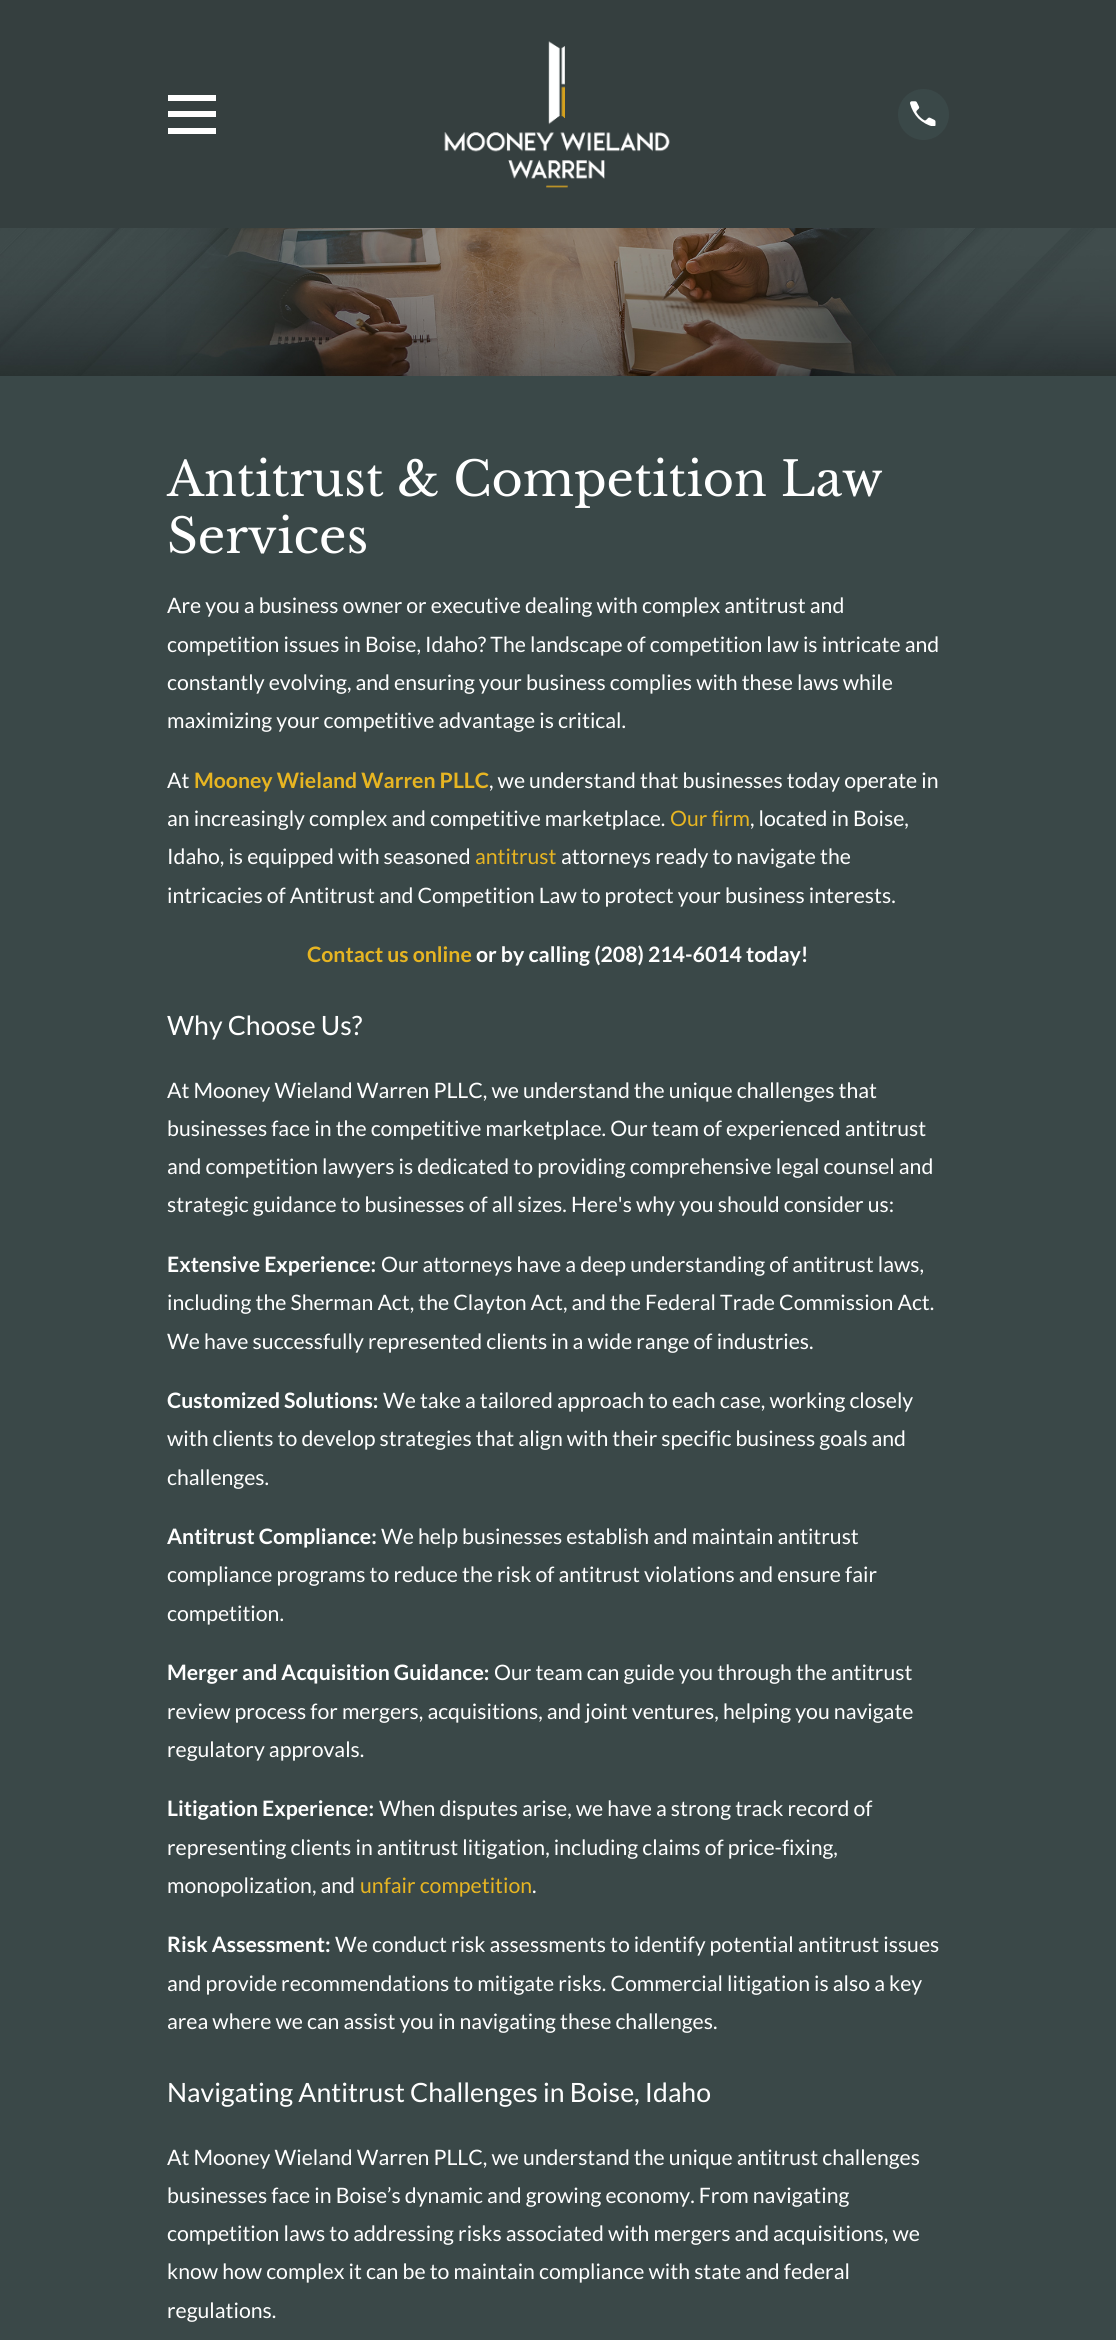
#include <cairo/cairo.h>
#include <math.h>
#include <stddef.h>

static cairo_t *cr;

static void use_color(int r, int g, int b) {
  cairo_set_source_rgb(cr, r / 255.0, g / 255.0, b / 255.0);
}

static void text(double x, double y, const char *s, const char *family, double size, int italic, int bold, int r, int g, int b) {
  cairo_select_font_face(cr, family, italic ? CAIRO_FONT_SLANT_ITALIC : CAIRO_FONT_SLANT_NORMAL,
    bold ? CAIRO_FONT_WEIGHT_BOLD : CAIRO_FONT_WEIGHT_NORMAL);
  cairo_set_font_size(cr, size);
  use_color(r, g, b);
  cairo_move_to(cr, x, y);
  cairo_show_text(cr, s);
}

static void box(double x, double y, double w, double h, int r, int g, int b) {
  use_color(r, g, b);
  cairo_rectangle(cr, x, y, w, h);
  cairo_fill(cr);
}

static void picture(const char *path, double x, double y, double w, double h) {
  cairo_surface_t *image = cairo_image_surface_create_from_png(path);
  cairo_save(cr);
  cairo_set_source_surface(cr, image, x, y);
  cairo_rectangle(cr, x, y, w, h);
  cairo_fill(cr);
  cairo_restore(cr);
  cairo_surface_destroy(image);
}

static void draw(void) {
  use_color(255, 255, 255);
  cairo_paint(cr);
  box(0, 0, 1116, 228, 53, 63, 63);
  use_color(255, 255, 255);
  cairo_new_path(cr);
  cairo_move_to(cr, 168, 95);
  cairo_line_to(cr, 168, 101);
  cairo_line_to(cr, 216, 101);
  cairo_line_to(cr, 216, 95);
  cairo_close_path(cr);
  cairo_move_to(cr, 168, 111);
  cairo_line_to(cr, 168, 117);
  cairo_line_to(cr, 216, 117);
  cairo_line_to(cr, 216, 111);
  cairo_close_path(cr);
  cairo_move_to(cr, 168, 128);
  cairo_line_to(cr, 168, 134);
  cairo_line_to(cr, 216, 134);
  cairo_line_to(cr, 216, 128);
  cairo_close_path(cr);
  cairo_fill(cr);
  picture("img_01.png", 444, 41, 226, 147);
  use_color(58, 72, 72);
  cairo_arc(cr, 923.5, 114.5, 25.5, 0, 2 * M_PI);
  cairo_fill(cr);
  picture("img_02.png", 910, 101, 26, 25);
  picture("img_03.png", 0, 228, 1116, 148);
  box(0, 376, 1116, 1964, 58, 72, 72);
  text(167, 496, "Antitrust & Competition Law", "Libre Baskerville", 47.8, 0, 0, 255, 255, 255);
  text(167, 553, "Services", "Libre Baskerville", 47.8, 0, 0, 255, 255, 255);
  text(167, 613, "Are you a business owner or executive dealing with complex antitrust and", "Lato", 21.25, 0, 0, 255, 255, 255);
  text(167, 652, "competition issues in Boise, Idaho? The landscape of competition law is intricate and", "Lato", 21.25, 0, 0, 255, 255, 255);
  text(167, 690, "constantly evolving, and ensuring your business complies with these laws while", "Lato", 21.25, 0, 0, 255, 255, 255);
  text(167, 728, "maximizing your competitive advantage is critical.", "Lato", 21.25, 0, 0, 255, 255, 255);
  text(167, 788, "At", "Lato", 21.25, 0, 0, 255, 255, 255);
  text(194, 788, "Mooney Wieland Warren PLLC", "Lato", 21.25, 0, 1, 231, 181, 34);
  text(489, 788, ", we understand that businesses today operate in", "Lato", 21.25, 0, 0, 255, 255, 255);
  text(167, 826, "an increasingly complex and competitive marketplace.", "Lato", 21.25, 0, 0, 255, 255, 255);
  text(670, 826, "Our firm", "Lato", 21.25, 0, 0, 231, 181, 34);
  text(750, 826, ", located in Boise,", "Lato", 21.25, 0, 0, 255, 255, 255);
  text(167, 864, "Idaho, is equipped with seasoned", "Lato", 21.25, 0, 0, 255, 255, 255);
  text(475, 864, "antitrust", "Lato", 21.25, 0, 0, 231, 181, 34);
  text(561, 864, "attorneys ready to navigate the", "Lato", 21.25, 0, 0, 255, 255, 255);
  text(167, 903, "intricacies of Antitrust and Competition Law to protect your business interests.", "Lato", 21.25, 0, 0, 255, 255, 255);
  text(307, 962, "Contact us online", "Lato", 21.25, 0, 1, 231, 181, 34);
  text(476, 962, "or by calling (208) 214-6014 today!", "Lato", 21.25, 0, 1, 255, 255, 255);
  text(167, 1035, "Why Choose Us?", "Lato", 26.6, 0, 0, 255, 255, 255);
  text(167, 1098, "At Mooney Wieland Warren PLLC, we understand the unique challenges that", "Lato", 21.25, 0, 0, 255, 255, 255);
  text(167, 1136, "businesses face in the competitive marketplace. Our team of experienced antitrust", "Lato", 21.25, 0, 0, 255, 255, 255);
  text(167, 1174, "and competition lawyers is dedicated to providing comprehensive legal counsel and", "Lato", 21.25, 0, 0, 255, 255, 255);
  text(167, 1212, "strategic guidance to businesses of all sizes. Here's why you should consider us:", "Lato", 21.25, 0, 0, 255, 255, 255);
  text(167, 1272, "Extensive Experience:", "Lato", 21.25, 0, 1, 255, 255, 255);
  text(381, 1272, "Our attorneys have a deep understanding of antitrust laws,", "Lato", 21.25, 0, 0, 255, 255, 255);
  text(167, 1310, "including the Sherman Act, the Clayton Act, and the Federal Trade Commission Act.", "Lato", 21.25, 0, 0, 255, 255, 255);
  text(167, 1349, "We have successfully represented clients in a wide range of industries.", "Lato", 21.25, 0, 0, 255, 255, 255);
  text(167, 1408, "Customized Solutions:", "Lato", 21.25, 0, 1, 255, 255, 255);
  text(383, 1408, "We take a tailored approach to each case, working closely", "Lato", 21.25, 0, 0, 255, 255, 255);
  text(167, 1446, "with clients to develop strategies that align with their specific business goals and", "Lato", 21.25, 0, 0, 255, 255, 255);
  text(167, 1485, "challenges.", "Lato", 21.25, 0, 0, 255, 255, 255);
  text(167, 1544, "Antitrust Compliance:", "Lato", 21.25, 0, 1, 255, 255, 255);
  text(381, 1544, "We help businesses establish and maintain antitrust", "Lato", 21.25, 0, 0, 255, 255, 255);
  text(167, 1582, "compliance programs to reduce the risk of antitrust violations and ensure fair", "Lato", 21.25, 0, 0, 255, 255, 255);
  text(167, 1621, "competition.", "Lato", 21.25, 0, 0, 255, 255, 255);
  text(167, 1680, "Merger and Acquisition Guidance:", "Lato", 21.25, 0, 1, 255, 255, 255);
  text(494, 1680, "Our team can guide you through the antitrust", "Lato", 21.25, 0, 0, 255, 255, 255);
  text(167, 1719, "review process for mergers, acquisitions, and joint ventures, helping you navigate", "Lato", 21.25, 0, 0, 255, 255, 255);
  text(167, 1757, "regulatory approvals.", "Lato", 21.25, 0, 0, 255, 255, 255);
  text(167, 1816, "Litigation Experience:", "Lato", 21.25, 0, 1, 255, 255, 255);
  text(379, 1816, "When disputes arise, we have a strong track record of", "Lato", 21.25, 0, 0, 255, 255, 255);
  text(167, 1855, "representing clients in antitrust litigation, including claims of price-fixing,", "Lato", 21.25, 0, 0, 255, 255, 255);
  text(167, 1893, "monopolization, and", "Lato", 21.25, 0, 0, 255, 255, 255);
  text(360, 1893, "unfair competition", "Lato", 21.25, 0, 0, 231, 181, 34);
  text(532, 1893, ".", "Lato", 21.25, 0, 0, 255, 255, 255);
  text(167, 1952, "Risk Assessment:", "Lato", 21.25, 0, 1, 255, 255, 255);
  text(335, 1952, "We conduct risk assessments to identify potential antitrust issues", "Lato", 21.25, 0, 0, 255, 255, 255);
  text(167, 1991, "and provide recommendations to mitigate risks. Commercial litigation is also a key", "Lato", 21.25, 0, 0, 255, 255, 255);
  text(167, 2029, "area where we can assist you in navigating these challenges.", "Lato", 21.25, 0, 0, 255, 255, 255);
  text(167, 2102, "Navigating Antitrust Challenges in Boise, Idaho", "Lato", 26.6, 0, 0, 255, 255, 255);
  text(167, 2165, "At Mooney Wieland Warren PLLC, we understand the unique antitrust challenges", "Lato", 21.25, 0, 0, 255, 255, 255);
  text(167, 2203, "businesses face in Boise’s dynamic and growing economy. From navigating", "Lato", 21.25, 0, 0, 255, 255, 255);
  text(167, 2241, "competition laws to addressing risks associated with mergers and acquisitions, we", "Lato", 21.25, 0, 0, 255, 255, 255);
  text(167, 2279, "know how complex it can be to maintain compliance with state and federal", "Lato", 21.25, 0, 0, 255, 255, 255);
  text(167, 2318, "regulations.", "Lato", 21.25, 0, 0, 255, 255, 255);
}

int main(void) {
  cairo_surface_t *surface = cairo_image_surface_create(CAIRO_FORMAT_RGB24, 1116, 2340);
  cr = cairo_create(surface);
  cairo_font_options_t *options = cairo_font_options_create();
  cairo_font_options_set_hint_metrics(options, CAIRO_HINT_METRICS_OFF);
  cairo_font_options_set_hint_style(options, CAIRO_HINT_STYLE_NONE);
  cairo_set_font_options(cr, options);
  cairo_set_miter_limit(cr, 4);
  draw();
  cairo_surface_write_to_png(surface, "out.png");
  cairo_font_options_destroy(options);
  cairo_destroy(cr);
  cairo_surface_destroy(surface);
  return 0;
}
